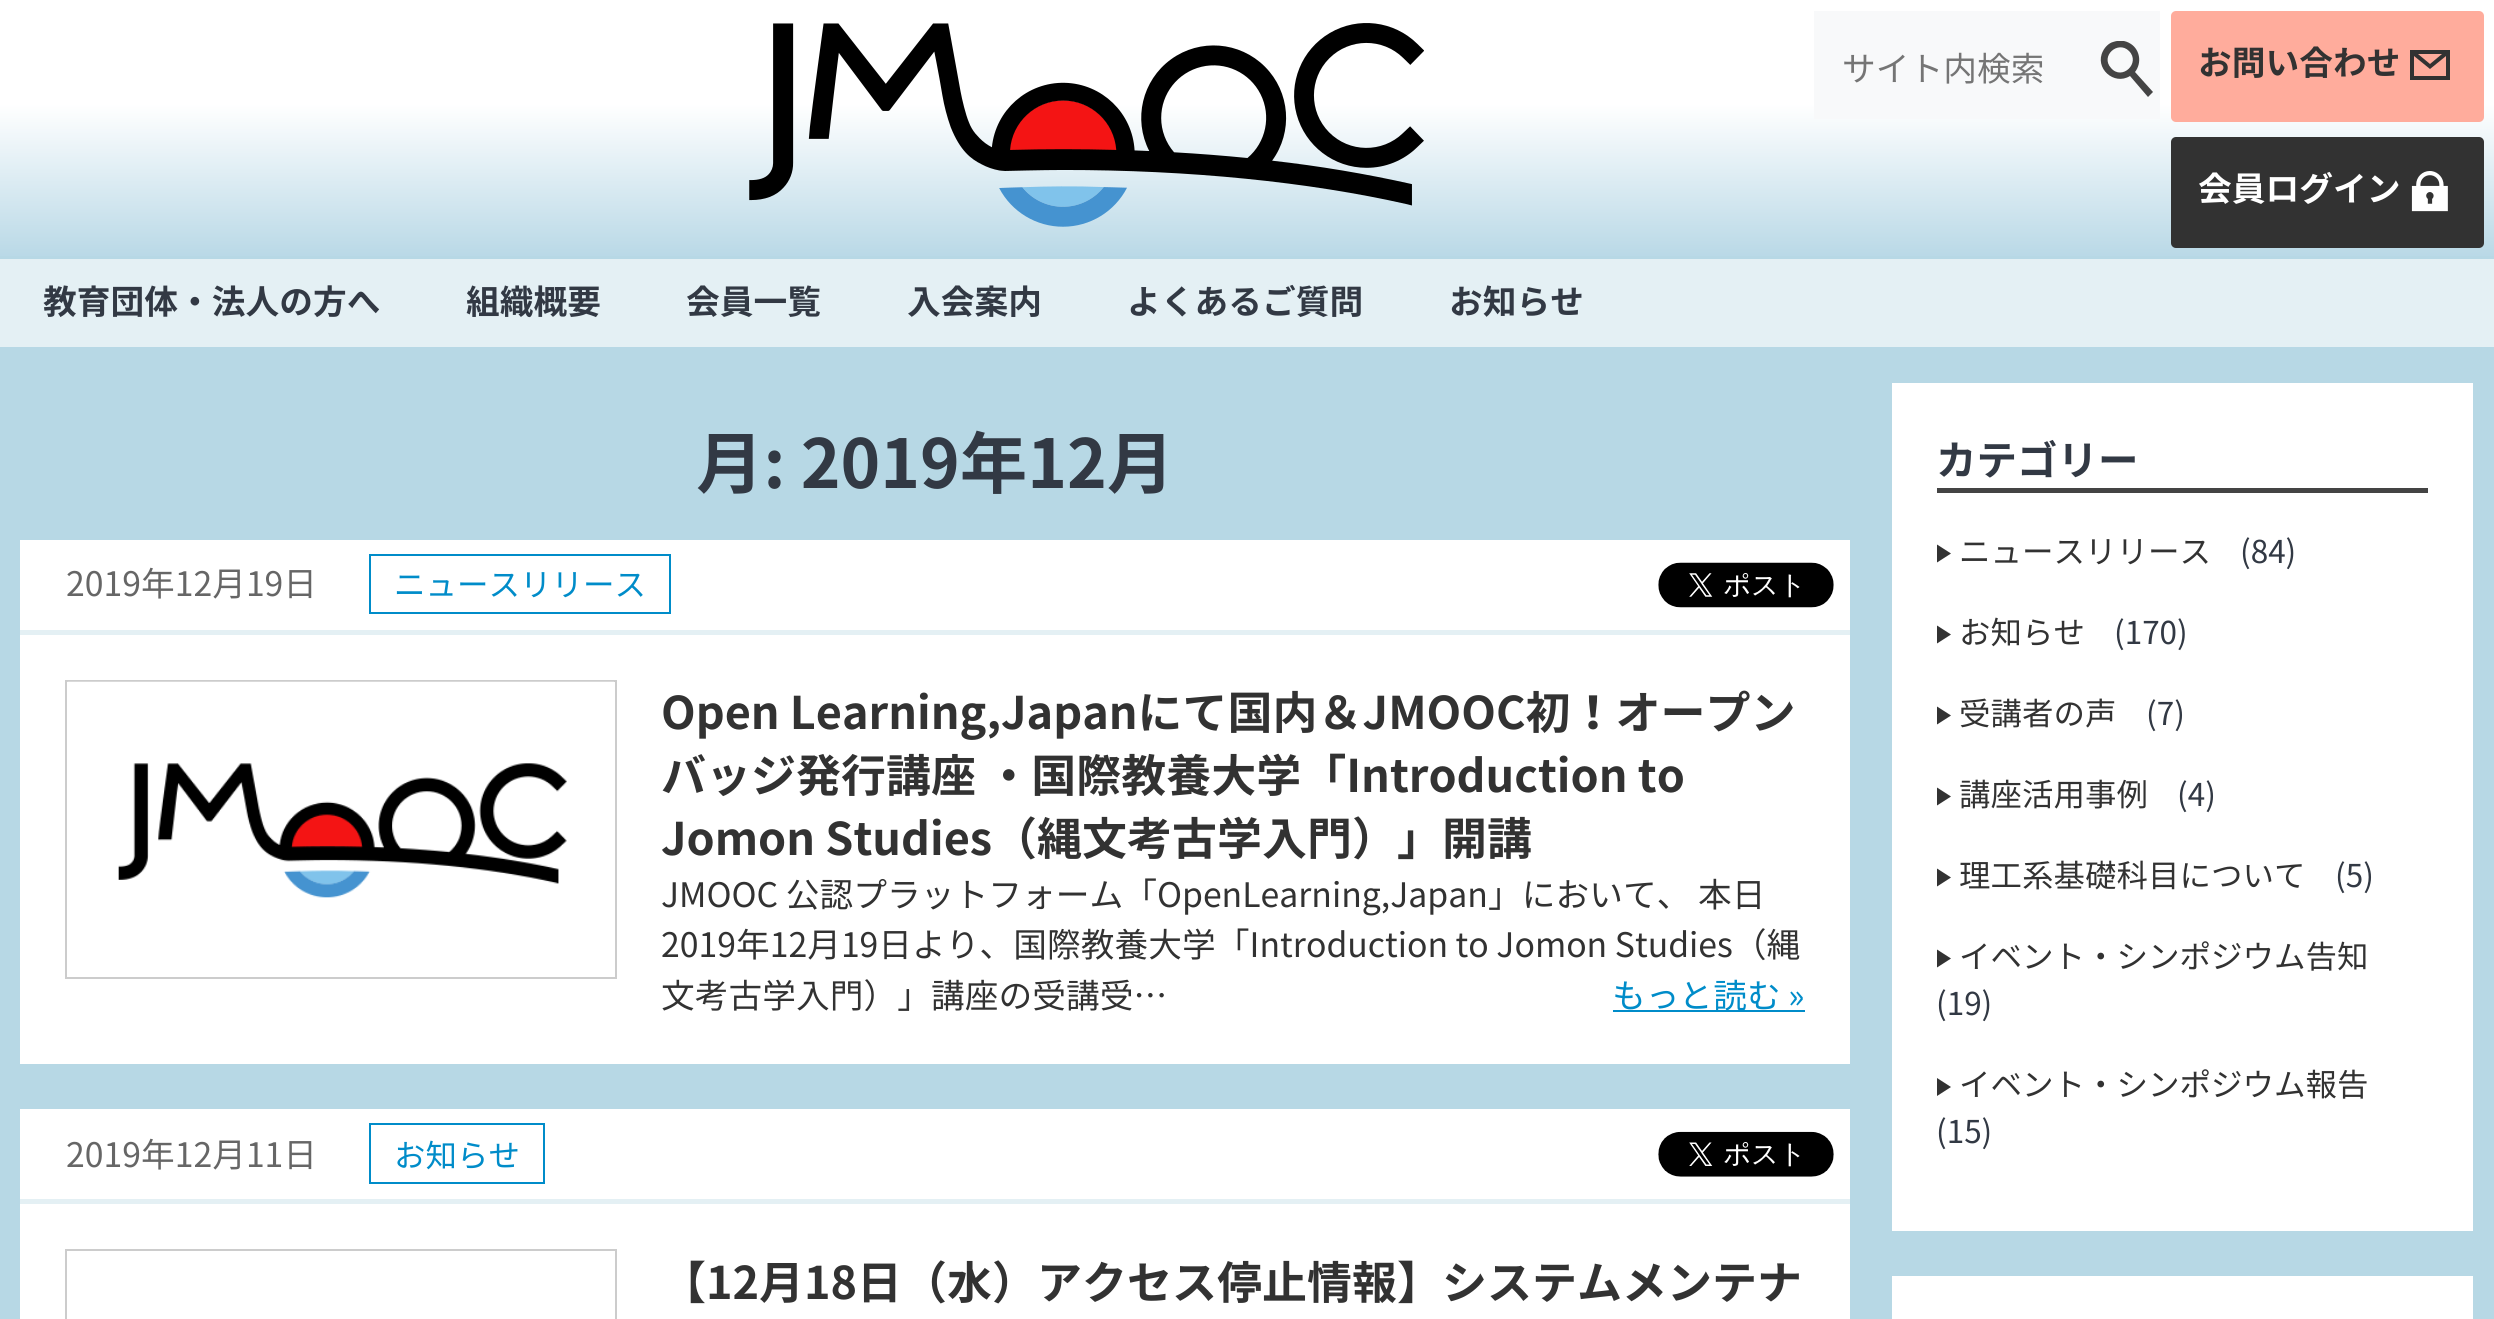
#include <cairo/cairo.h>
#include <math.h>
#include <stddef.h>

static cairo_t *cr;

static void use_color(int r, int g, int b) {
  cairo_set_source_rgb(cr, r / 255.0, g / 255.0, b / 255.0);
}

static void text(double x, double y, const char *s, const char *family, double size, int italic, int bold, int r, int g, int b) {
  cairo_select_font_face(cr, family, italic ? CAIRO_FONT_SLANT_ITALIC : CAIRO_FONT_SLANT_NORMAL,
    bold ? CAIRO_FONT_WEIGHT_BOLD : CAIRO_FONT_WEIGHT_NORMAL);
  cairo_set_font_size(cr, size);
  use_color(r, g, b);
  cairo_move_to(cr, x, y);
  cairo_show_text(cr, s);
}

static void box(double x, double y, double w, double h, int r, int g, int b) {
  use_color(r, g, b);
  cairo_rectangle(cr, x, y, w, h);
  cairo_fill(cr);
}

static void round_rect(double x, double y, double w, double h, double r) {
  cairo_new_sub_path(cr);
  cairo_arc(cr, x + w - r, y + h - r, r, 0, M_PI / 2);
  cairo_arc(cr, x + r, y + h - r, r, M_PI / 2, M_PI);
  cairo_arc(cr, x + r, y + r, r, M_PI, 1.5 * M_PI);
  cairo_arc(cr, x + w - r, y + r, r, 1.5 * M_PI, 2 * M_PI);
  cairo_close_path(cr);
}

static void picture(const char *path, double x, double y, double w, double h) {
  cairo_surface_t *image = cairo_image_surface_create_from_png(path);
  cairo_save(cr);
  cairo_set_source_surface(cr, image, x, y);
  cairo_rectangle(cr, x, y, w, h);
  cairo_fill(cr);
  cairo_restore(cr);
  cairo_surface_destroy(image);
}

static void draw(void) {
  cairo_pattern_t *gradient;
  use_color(183, 216, 229);
  cairo_paint(cr);
  gradient = cairo_pattern_create_linear(1248, 0, 1248, 259);
  cairo_pattern_add_color_stop_rgba(gradient, 0.4, 1, 1, 1, 1);
  cairo_pattern_add_color_stop_rgba(gradient, 1, 0.722, 0.847, 0.902, 1);
  cairo_set_source(cr, gradient);
  cairo_pattern_destroy(gradient);
  cairo_rectangle(cr, 0, 0, 2494, 256);
  cairo_fill(cr);
  picture("img_01.png", 749, 23, 675, 204);
  box(1814, 11, 346, 108, 248, 249, 250);
  cairo_save(cr);
  cairo_rectangle(cr, 2099, 41, 57, 56);
  cairo_clip(cr);
  use_color(68, 68, 68);
  cairo_new_path(cr);
  cairo_move_to(cr, 2153, 92);
  cairo_line_to(cr, 2135, 72);
  cairo_curve_to(cr, 2142, 63, 2140, 50, 2131, 44);
  cairo_curve_to(cr, 2125, 40, 2119, 40, 2113, 42);
  cairo_curve_to(cr, 2109, 43, 2105, 47, 2103, 51);
  cairo_curve_to(cr, 2094, 68, 2114, 86, 2130, 76);
  cairo_line_to(cr, 2148, 97);
  cairo_close_path(cr);
  cairo_move_to(cr, 2111, 68);
  cairo_curve_to(cr, 2100, 56, 2118, 40, 2129, 51);
  cairo_curve_to(cr, 2141, 63, 2122, 81, 2111, 68);
  cairo_close_path(cr);
  cairo_fill(cr);
  cairo_restore(cr);
  use_color(255, 172, 156);
  round_rect(2171, 11, 313, 111, 5);
  cairo_fill(cr);
  use_color(50, 50, 50);
  cairo_new_path(cr);
  cairo_move_to(cr, 2410, 50);
  cairo_line_to(cr, 2410, 80);
  cairo_line_to(cr, 2450, 80);
  cairo_line_to(cr, 2450, 50);
  cairo_close_path(cr);
  cairo_move_to(cr, 2442, 54);
  cairo_line_to(cr, 2430, 64);
  cairo_line_to(cr, 2418, 54);
  cairo_close_path(cr);
  cairo_move_to(cr, 2414, 76);
  cairo_line_to(cr, 2414, 56);
  cairo_line_to(cr, 2430, 69);
  cairo_line_to(cr, 2446, 56);
  cairo_line_to(cr, 2446, 76);
  cairo_close_path(cr);
  cairo_fill(cr);
  round_rect(2171, 137, 313, 111, 5);
  cairo_fill(cr);
  picture("img_02.png", 2411, 171, 37, 41);
  box(0, 259, 2494, 88, 228, 240, 244);
  box(20, 540, 1830, 524, 255, 255, 255);
  box(20, 630, 1830, 5, 228, 240, 244);
  cairo_rectangle(cr, 370, 555, 300, 58);
  use_color(0, 140, 201);
  cairo_stroke(cr);
  picture("img_03.png", 1658, 562, 176, 46);
  cairo_rectangle(cr, 66, 681, 550, 297);
  use_color(204, 204, 204);
  cairo_stroke(cr);
  picture("img_04.png", 67, 681, 547, 217);
  box(1613, 1010, 192, 2, 0, 140, 201);
  box(20, 1109, 1830, 210, 255, 255, 255);
  box(20, 1199, 1830, 5, 228, 240, 244);
  cairo_rectangle(cr, 370, 1124, 174, 59);
  use_color(0, 140, 201);
  cairo_stroke(cr);
  picture("img_05.png", 1658, 1131, 176, 46);
  cairo_rectangle(cr, 66, 1250, 550, 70);
  use_color(204, 204, 204);
  cairo_stroke(cr);
  box(1892, 383, 581, 848, 255, 255, 255);
  box(1937, 488, 491, 5, 68, 68, 68);
  use_color(50, 50, 50);
  cairo_new_path(cr);
  cairo_move_to(cr, 1937, 562.5);
  cairo_line_to(cr, 1937, 544.5);
  cairo_line_to(cr, 1951, 553.5);
  cairo_close_path(cr);
  cairo_fill(cr);
  cairo_new_path(cr);
  cairo_move_to(cr, 1937, 643.5);
  cairo_line_to(cr, 1937, 625.5);
  cairo_line_to(cr, 1951, 634.5);
  cairo_close_path(cr);
  cairo_fill(cr);
  cairo_new_path(cr);
  cairo_move_to(cr, 1937, 724.5);
  cairo_line_to(cr, 1937, 706.5);
  cairo_line_to(cr, 1951, 715.5);
  cairo_close_path(cr);
  cairo_fill(cr);
  cairo_new_path(cr);
  cairo_move_to(cr, 1937, 805.5);
  cairo_line_to(cr, 1937, 787.5);
  cairo_line_to(cr, 1951, 796.5);
  cairo_close_path(cr);
  cairo_fill(cr);
  cairo_new_path(cr);
  cairo_move_to(cr, 1937, 886.5);
  cairo_line_to(cr, 1937, 868.5);
  cairo_line_to(cr, 1951, 877.5);
  cairo_close_path(cr);
  cairo_fill(cr);
  cairo_new_path(cr);
  cairo_move_to(cr, 1937, 967.5);
  cairo_line_to(cr, 1937, 949.5);
  cairo_line_to(cr, 1951, 958.5);
  cairo_close_path(cr);
  cairo_fill(cr);
  cairo_new_path(cr);
  cairo_move_to(cr, 1937, 1096);
  cairo_line_to(cr, 1937, 1078);
  cairo_line_to(cr, 1951, 1087);
  cairo_close_path(cr);
  cairo_fill(cr);
  box(1892, 1276, 581, 43, 255, 255, 255);
  text(1842, 81, "サイト内検索", "Noto Sans JP", 33.75, 0, 0, 117, 117, 117);
  text(2198, 75, "お問い合わせ", "Noto Sans JP", 33.75, 0, 1, 50, 50, 50);
  text(2198, 201, "会員ログイン", "Noto Sans JP", 33.75, 0, 1, 255, 255, 255);
  text(43, 314, "教育団体・法人の方へ", "Noto Sans JP", 33.75, 0, 1, 50, 57, 68);
  text(466, 314, "組織概要", "Noto Sans JP", 33.75, 0, 1, 50, 57, 68);
  text(686, 314, "会員一覧", "Noto Sans JP", 33.75, 0, 1, 50, 57, 68);
  text(907, 314, "入会案内", "Noto Sans JP", 33.75, 0, 1, 50, 57, 68);
  text(1127, 314, "よくあるご質問", "Noto Sans JP", 33.75, 0, 1, 50, 57, 68);
  text(1449, 314, "お知らせ", "Noto Sans JP", 33.75, 0, 1, 50, 57, 68);
  text(696, 488, "月: 2019年12月", "Noto Sans JP", 67.5, 0, 1, 50, 57, 68);
  text(66, 596, "2019年12月19日", "Noto Sans JP", 33.75, 0, 0, 102, 102, 102);
  text(394, 596, "ニュースリリース", "Noto Sans JP", 31.5, 0, 0, 0, 140, 201);
  text(661, 729, "Open Learning,Japanにて国内＆JMOOC初！オープン", "Noto Sans JP", 45, 0, 1, 50, 50, 50);
  text(661, 792, "バッジ発行講座 ・国際教養大学「Introduction to", "Noto Sans JP", 45, 0, 1, 50, 50, 50);
  text(661, 855, "Jomon Studies（縄文考古学入門）」開講", "Noto Sans JP", 45, 0, 1, 50, 50, 50);
  text(661, 907, "JMOOC 公認プラットフォーム「OpenLearning,Japan」において、 本日", "Noto Sans JP", 33.75, 0, 0, 50, 50, 50);
  text(661, 957, "2019年12月19日より、国際教養大学「Introduction to Jomon Studies（縄", "Noto Sans JP", 33.75, 0, 0, 50, 50, 50);
  text(661, 1008, "文考古学入門）」講座の受講受…", "Noto Sans JP", 33.75, 0, 0, 50, 50, 50);
  text(1612, 1008, "もっと読む »", "Noto Sans JP", 33.75, 0, 0, 0, 140, 201);
  text(66, 1167, "2019年12月11日", "Noto Sans JP", 33.75, 0, 0, 102, 102, 102);
  text(394, 1167, "お知らせ", "Noto Sans JP", 31.5, 0, 0, 0, 140, 201);
  text(661, 1299, "【12月18日（水）アクセス停止情報】システムメンテナ", "Noto Sans JP", 45, 0, 1, 50, 50, 50);
  text(1936, 475, "カテゴリー", "Noto Sans JP", 40.5, 0, 1, 50, 57, 68);
  text(1959, 563, "ニュースリリース", "Noto Sans JP", 31.5, 0, 0, 50, 50, 50);
  text(2240, 563, "(84)", "Noto Sans JP", 31.5, 0, 0, 50, 57, 68);
  text(1959, 644, "お知らせ", "Noto Sans JP", 31.5, 0, 0, 50, 50, 50);
  text(2114, 644, "(170)", "Noto Sans JP", 31.5, 0, 0, 50, 57, 68);
  text(1959, 725, "受講者の声", "Noto Sans JP", 31.5, 0, 0, 50, 50, 50);
  text(2146, 725, "(7)", "Noto Sans JP", 31.5, 0, 0, 50, 57, 68);
  text(1959, 806, "講座活用事例", "Noto Sans JP", 31.5, 0, 0, 50, 50, 50);
  text(2177, 806, "(4)", "Noto Sans JP", 31.5, 0, 0, 50, 57, 68);
  text(1959, 887, "理工系基礎科目について", "Noto Sans JP", 31.5, 0, 0, 50, 50, 50);
  text(2335, 887, "(5)", "Noto Sans JP", 31.5, 0, 0, 50, 57, 68);
  text(1959, 968, "イベント・シンポジウム告知", "Noto Sans JP", 31.5, 0, 0, 50, 50, 50);
  text(1936, 1015, "(19)", "Noto Sans JP", 31.5, 0, 0, 50, 57, 68);
  text(1959, 1096, "イベント・シンポジウム報告", "Noto Sans JP", 31.5, 0, 0, 50, 50, 50);
  text(1936, 1143, "(15)", "Noto Sans JP", 31.5, 0, 0, 50, 57, 68);
}

int main(void) {
  cairo_surface_t *surface = cairo_image_surface_create(CAIRO_FORMAT_RGB24, 2494, 1319);
  cr = cairo_create(surface);
  cairo_font_options_t *options = cairo_font_options_create();
  cairo_font_options_set_hint_metrics(options, CAIRO_HINT_METRICS_OFF);
  cairo_font_options_set_hint_style(options, CAIRO_HINT_STYLE_NONE);
  cairo_set_font_options(cr, options);
  cairo_set_miter_limit(cr, 4);
  draw();
  cairo_surface_write_to_png(surface, "out.png");
  cairo_font_options_destroy(options);
  cairo_destroy(cr);
  cairo_surface_destroy(surface);
  return 0;
}
